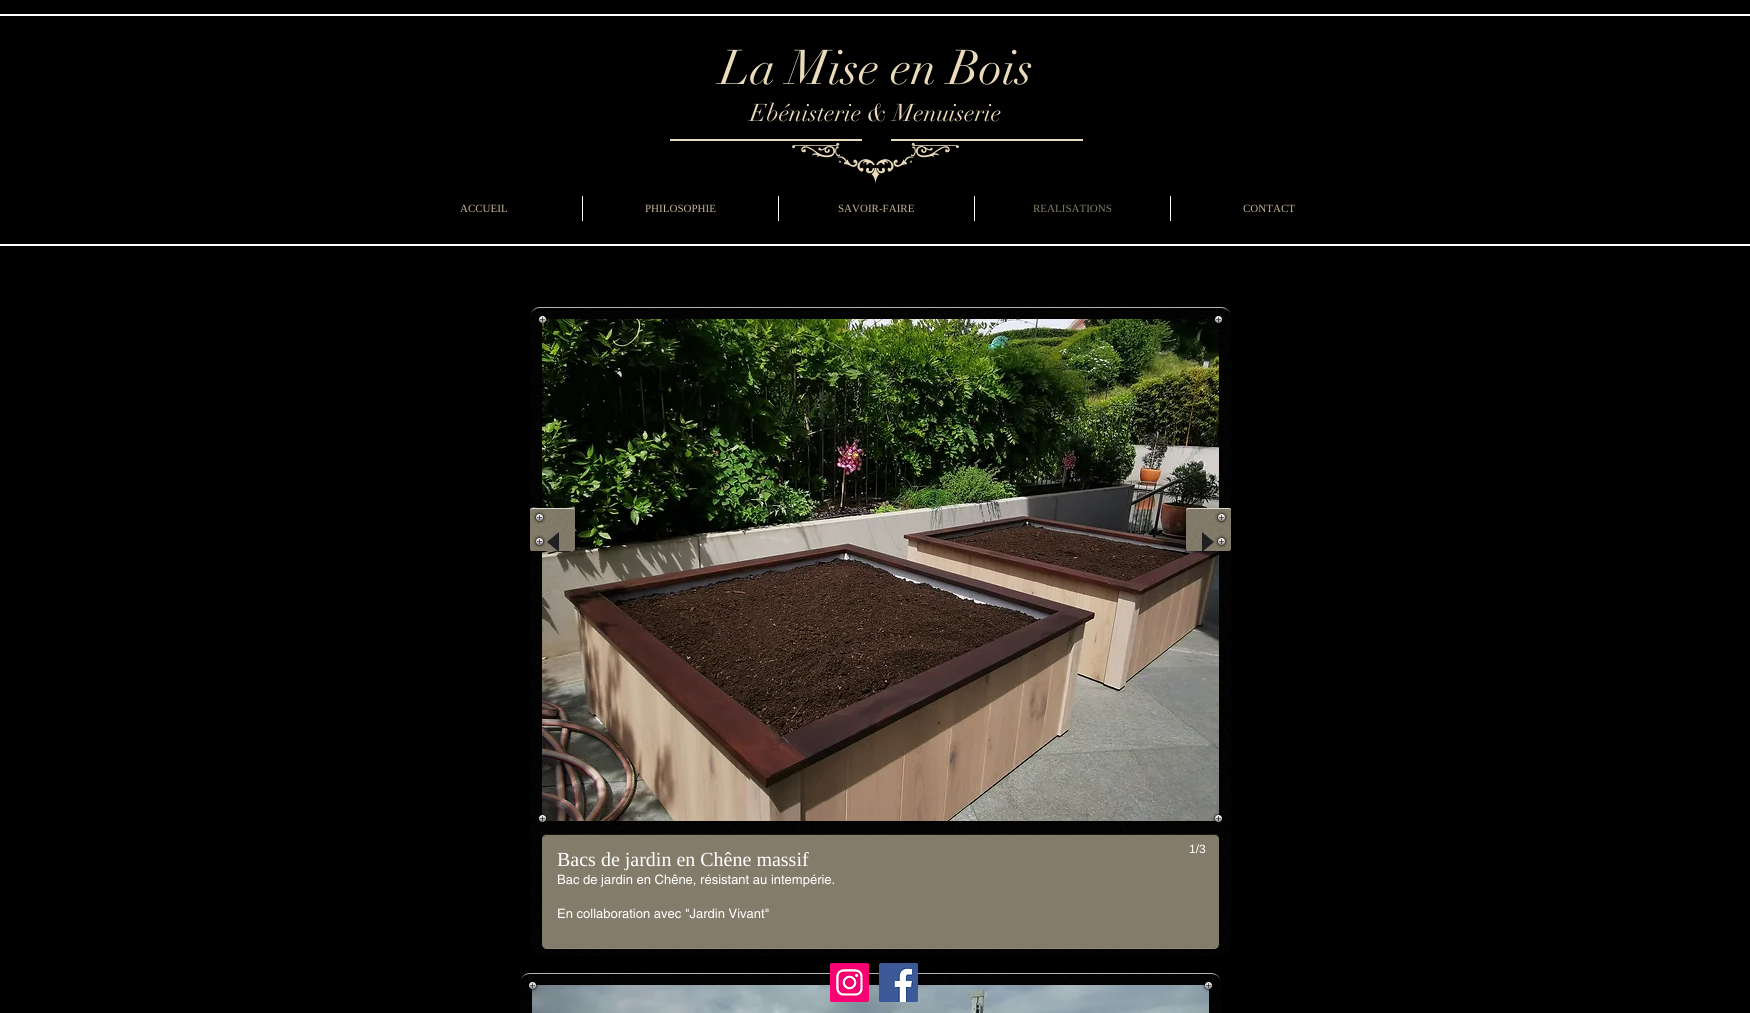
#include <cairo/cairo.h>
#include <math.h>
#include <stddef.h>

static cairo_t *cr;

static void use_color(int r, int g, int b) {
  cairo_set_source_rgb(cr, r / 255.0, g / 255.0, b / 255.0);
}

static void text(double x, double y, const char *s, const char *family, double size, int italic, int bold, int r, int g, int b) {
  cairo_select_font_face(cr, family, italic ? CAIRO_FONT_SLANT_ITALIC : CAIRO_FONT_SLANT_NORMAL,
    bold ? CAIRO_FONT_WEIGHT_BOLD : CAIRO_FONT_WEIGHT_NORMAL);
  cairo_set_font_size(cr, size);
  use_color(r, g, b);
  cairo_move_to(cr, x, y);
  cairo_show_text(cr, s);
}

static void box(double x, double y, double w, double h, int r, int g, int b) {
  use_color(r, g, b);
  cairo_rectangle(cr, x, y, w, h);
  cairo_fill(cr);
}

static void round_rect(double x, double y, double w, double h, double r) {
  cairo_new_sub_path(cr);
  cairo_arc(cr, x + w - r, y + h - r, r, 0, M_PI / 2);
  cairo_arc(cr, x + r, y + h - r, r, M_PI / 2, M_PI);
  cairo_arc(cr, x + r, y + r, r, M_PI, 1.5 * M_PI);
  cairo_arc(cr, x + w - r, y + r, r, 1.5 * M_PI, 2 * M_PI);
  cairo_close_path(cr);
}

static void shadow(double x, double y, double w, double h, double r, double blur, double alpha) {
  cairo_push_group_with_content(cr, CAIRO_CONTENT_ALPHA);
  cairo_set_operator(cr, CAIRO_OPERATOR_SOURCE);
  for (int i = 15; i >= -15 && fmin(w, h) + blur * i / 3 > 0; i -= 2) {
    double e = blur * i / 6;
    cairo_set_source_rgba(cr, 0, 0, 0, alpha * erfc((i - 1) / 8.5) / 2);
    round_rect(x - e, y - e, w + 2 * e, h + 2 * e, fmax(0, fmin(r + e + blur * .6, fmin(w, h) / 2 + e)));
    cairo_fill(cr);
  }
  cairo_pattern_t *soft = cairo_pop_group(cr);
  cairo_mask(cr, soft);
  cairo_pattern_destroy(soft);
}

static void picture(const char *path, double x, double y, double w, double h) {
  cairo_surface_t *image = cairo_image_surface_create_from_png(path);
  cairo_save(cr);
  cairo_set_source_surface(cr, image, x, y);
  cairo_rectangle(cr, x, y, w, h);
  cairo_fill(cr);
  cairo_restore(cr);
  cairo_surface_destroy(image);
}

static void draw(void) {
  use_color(0, 0, 0);
  cairo_paint(cr);
  box(0, 14, 1750, 2, 255, 255, 255);
  box(0, 244, 1750, 2, 255, 255, 255);
  box(670, 139, 192, 2, 234, 220, 187);
  box(891, 139, 192, 2, 234, 220, 187);
  picture("img_01.png", 792, 142, 167, 41);
  box(582, 196, 1, 25, 255, 255, 255);
  box(778, 196, 1, 25, 255, 255, 255);
  box(974, 196, 1, 25, 255, 255, 255);
  box(1170, 196, 1, 25, 255, 255, 255);
  picture("img_08.png", 530, 307, 701, 649);
  picture("img_10.png", 542, 319, 677, 502);
  cairo_save(cr);
  round_rect(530, 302, 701, 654, 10);
  cairo_clip(cr);
  use_color(0, 0, 0);
  shadow(530, 509, 45, 43, 2, 1.5, 0.5);
  cairo_restore(cr);
  use_color(132, 124, 106);
  round_rect(530, 508, 45, 43, 2);
  cairo_fill(cr);
  picture("img_02.png", 530, 508, 45, 43);
  cairo_set_source_rgba(cr, 1, 1, 1, 0.7);
  cairo_new_path(cr);
  cairo_move_to(cr, 532, 509);
  cairo_curve_to(cr, 531, 509, 530, 510, 530, 511);
  cairo_curve_to(cr, 530, 506, 535, 508, 539, 508);
  cairo_line_to(cr, 566, 508);
  cairo_curve_to(cr, 570, 508, 575, 506, 575, 511);
  cairo_curve_to(cr, 575, 510, 574, 509, 573, 509);
  cairo_close_path(cr);
  cairo_fill(cr);
  use_color(32, 32, 32);
  cairo_new_path(cr);
  cairo_move_to(cr, 559, 532);
  cairo_line_to(cr, 559, 552);
  cairo_line_to(cr, 547, 542);
  cairo_close_path(cr);
  cairo_fill(cr);
  cairo_save(cr);
  round_rect(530, 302, 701, 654, 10);
  cairo_clip(cr);
  use_color(0, 0, 0);
  shadow(1186, 509, 45, 43, 2, 1.5, 0.5);
  cairo_restore(cr);
  use_color(132, 124, 106);
  round_rect(1186, 508, 45, 43, 2);
  cairo_fill(cr);
  picture("img_03.png", 1186, 508, 45, 43);
  cairo_set_source_rgba(cr, 1, 1, 1, 0.7);
  cairo_new_path(cr);
  cairo_move_to(cr, 1188, 508);
  cairo_curve_to(cr, 1186, 508, 1186, 510, 1186, 511);
  cairo_curve_to(cr, 1186, 510, 1187, 509, 1188, 509);
  cairo_line_to(cr, 1229, 509);
  cairo_curve_to(cr, 1230, 509, 1231, 510, 1231, 511);
  cairo_curve_to(cr, 1231, 510, 1231, 508, 1229, 508);
  cairo_close_path(cr);
  cairo_fill(cr);
  use_color(32, 32, 32);
  cairo_new_path(cr);
  cairo_move_to(cr, 1202, 552);
  cairo_line_to(cr, 1202, 532);
  cairo_line_to(cr, 1214, 542);
  cairo_close_path(cr);
  cairo_fill(cr);
  picture("img_04.png", 533, 511, 13, 13);
  picture("img_05.png", 1215, 511, 13, 13);
  picture("img_06.png", 533, 535, 13, 13);
  picture("img_07.png", 1215, 535, 13, 13);
  cairo_set_source_rgba(cr, 1, 1, 1, 0.7);
  cairo_new_path(cr);
  cairo_move_to(cr, 540, 308);
  cairo_line_to(cr, 1221, 308);
  cairo_curve_to(cr, 1227, 308, 1231, 312, 1231, 318);
  cairo_curve_to(cr, 1231, 312, 1227, 307, 1221, 307);
  cairo_line_to(cr, 540, 307);
  cairo_curve_to(cr, 534, 307, 530, 312, 530, 318);
  cairo_curve_to(cr, 530, 312, 534, 308, 540, 308);
  cairo_close_path(cr);
  cairo_fill(cr);
  picture("img_09.png", 539, 316, 10, 10);
  picture("img_11.png", 1212, 812, 10, 10);
  picture("img_12.png", 1215, 316, 7, 8);
  picture("img_13.png", 539, 813, 9, 9);
  use_color(132, 124, 106);
  round_rect(542, 834, 677, 115, 5);
  cairo_fill(cr);
  use_color(25, 25, 25);
  cairo_new_path(cr);
  cairo_move_to(cr, 547, 834);
  cairo_curve_to(cr, 544, 834, 542, 836, 542, 839);
  cairo_curve_to(cr, 542, 837, 544, 835, 547, 835);
  cairo_line_to(cr, 1214, 835);
  cairo_curve_to(cr, 1217, 835, 1219, 837, 1219, 839);
  cairo_curve_to(cr, 1219, 836, 1217, 834, 1214, 834);
  cairo_close_path(cr);
  cairo_fill(cr);
  cairo_set_source_rgba(cr, 1, 1, 1, 0.1);
  cairo_new_path(cr);
  cairo_move_to(cr, 1214, 949);
  cairo_curve_to(cr, 1217, 949, 1219, 947, 1219, 944);
  cairo_curve_to(cr, 1219, 946, 1217, 948, 1214, 948);
  cairo_line_to(cr, 547, 948);
  cairo_curve_to(cr, 544, 948, 542, 946, 542, 944);
  cairo_curve_to(cr, 542, 947, 544, 949, 547, 949);
  cairo_close_path(cr);
  cairo_fill(cr);
  picture("img_14.png", 520, 973, 701, 40);
  cairo_set_source_rgba(cr, 1, 1, 1, 0.7);
  cairo_new_path(cr);
  cairo_move_to(cr, 530, 974);
  cairo_line_to(cr, 1211, 974);
  cairo_curve_to(cr, 1217, 974, 1221, 978, 1221, 984);
  cairo_curve_to(cr, 1221, 978, 1217, 973, 1211, 973);
  cairo_line_to(cr, 530, 973);
  cairo_curve_to(cr, 524, 973, 520, 978, 520, 984);
  cairo_curve_to(cr, 520, 978, 524, 974, 530, 974);
  cairo_close_path(cr);
  cairo_fill(cr);
  picture("img_16.png", 532, 985, 677, 28);
  picture("img_15.png", 529, 982, 10, 10);
  picture("img_17.png", 1202, 982, 10, 10);
  picture("img_18.png", 830, 963, 39, 39);
  picture("img_19.png", 879, 963, 39, 39);
  text(720, 84, "La Mise en Bois", "didot", 48, 0, 0, 234, 220, 187);
  text(750, 121, "Ebénisterie & Menuiserie", "didot", 24, 0, 0, 234, 220, 187);
  text(460, 212, "ACCUEIL", "Liberation Serif", 11, 0, 0, 195, 180, 147);
  text(645, 212, "PHILOSOPHIE", "Liberation Serif", 11, 0, 0, 195, 180, 147);
  text(838, 212, "SAVOIR-FAIRE", "Liberation Serif", 11, 0, 0, 195, 180, 147);
  text(1033, 212, "REALISATIONS", "Liberation Serif", 11, 0, 0, 132, 124, 106);
  text(1243, 212, "CONTACT", "Liberation Serif", 11, 0, 0, 195, 180, 147);
  text(1189, 853, "1/3", "Liberation Sans", 12, 0, 0, 255, 255, 255);
  text(557, 866, "Bacs de jardin en Chêne massif", "Liberation Serif", 20, 0, 0, 255, 255, 255);
  text(557, 884, "Bac de jardin en Chêne, résistant au intempérie.", "helvetica", 13, 0, 0, 255, 255, 255);
  text(557, 918, "En collaboration avec \"Jardin Vivant\"", "helvetica", 13, 0, 0, 255, 255, 255);
}

int main(void) {
  cairo_surface_t *surface = cairo_image_surface_create(CAIRO_FORMAT_RGB24, 1750, 1013);
  cr = cairo_create(surface);
  cairo_font_options_t *options = cairo_font_options_create();
  cairo_font_options_set_hint_metrics(options, CAIRO_HINT_METRICS_OFF);
  cairo_font_options_set_hint_style(options, CAIRO_HINT_STYLE_NONE);
  cairo_set_font_options(cr, options);
  cairo_set_miter_limit(cr, 4);
  draw();
  cairo_surface_write_to_png(surface, "out.png");
  cairo_font_options_destroy(options);
  cairo_destroy(cr);
  cairo_surface_destroy(surface);
  return 0;
}
